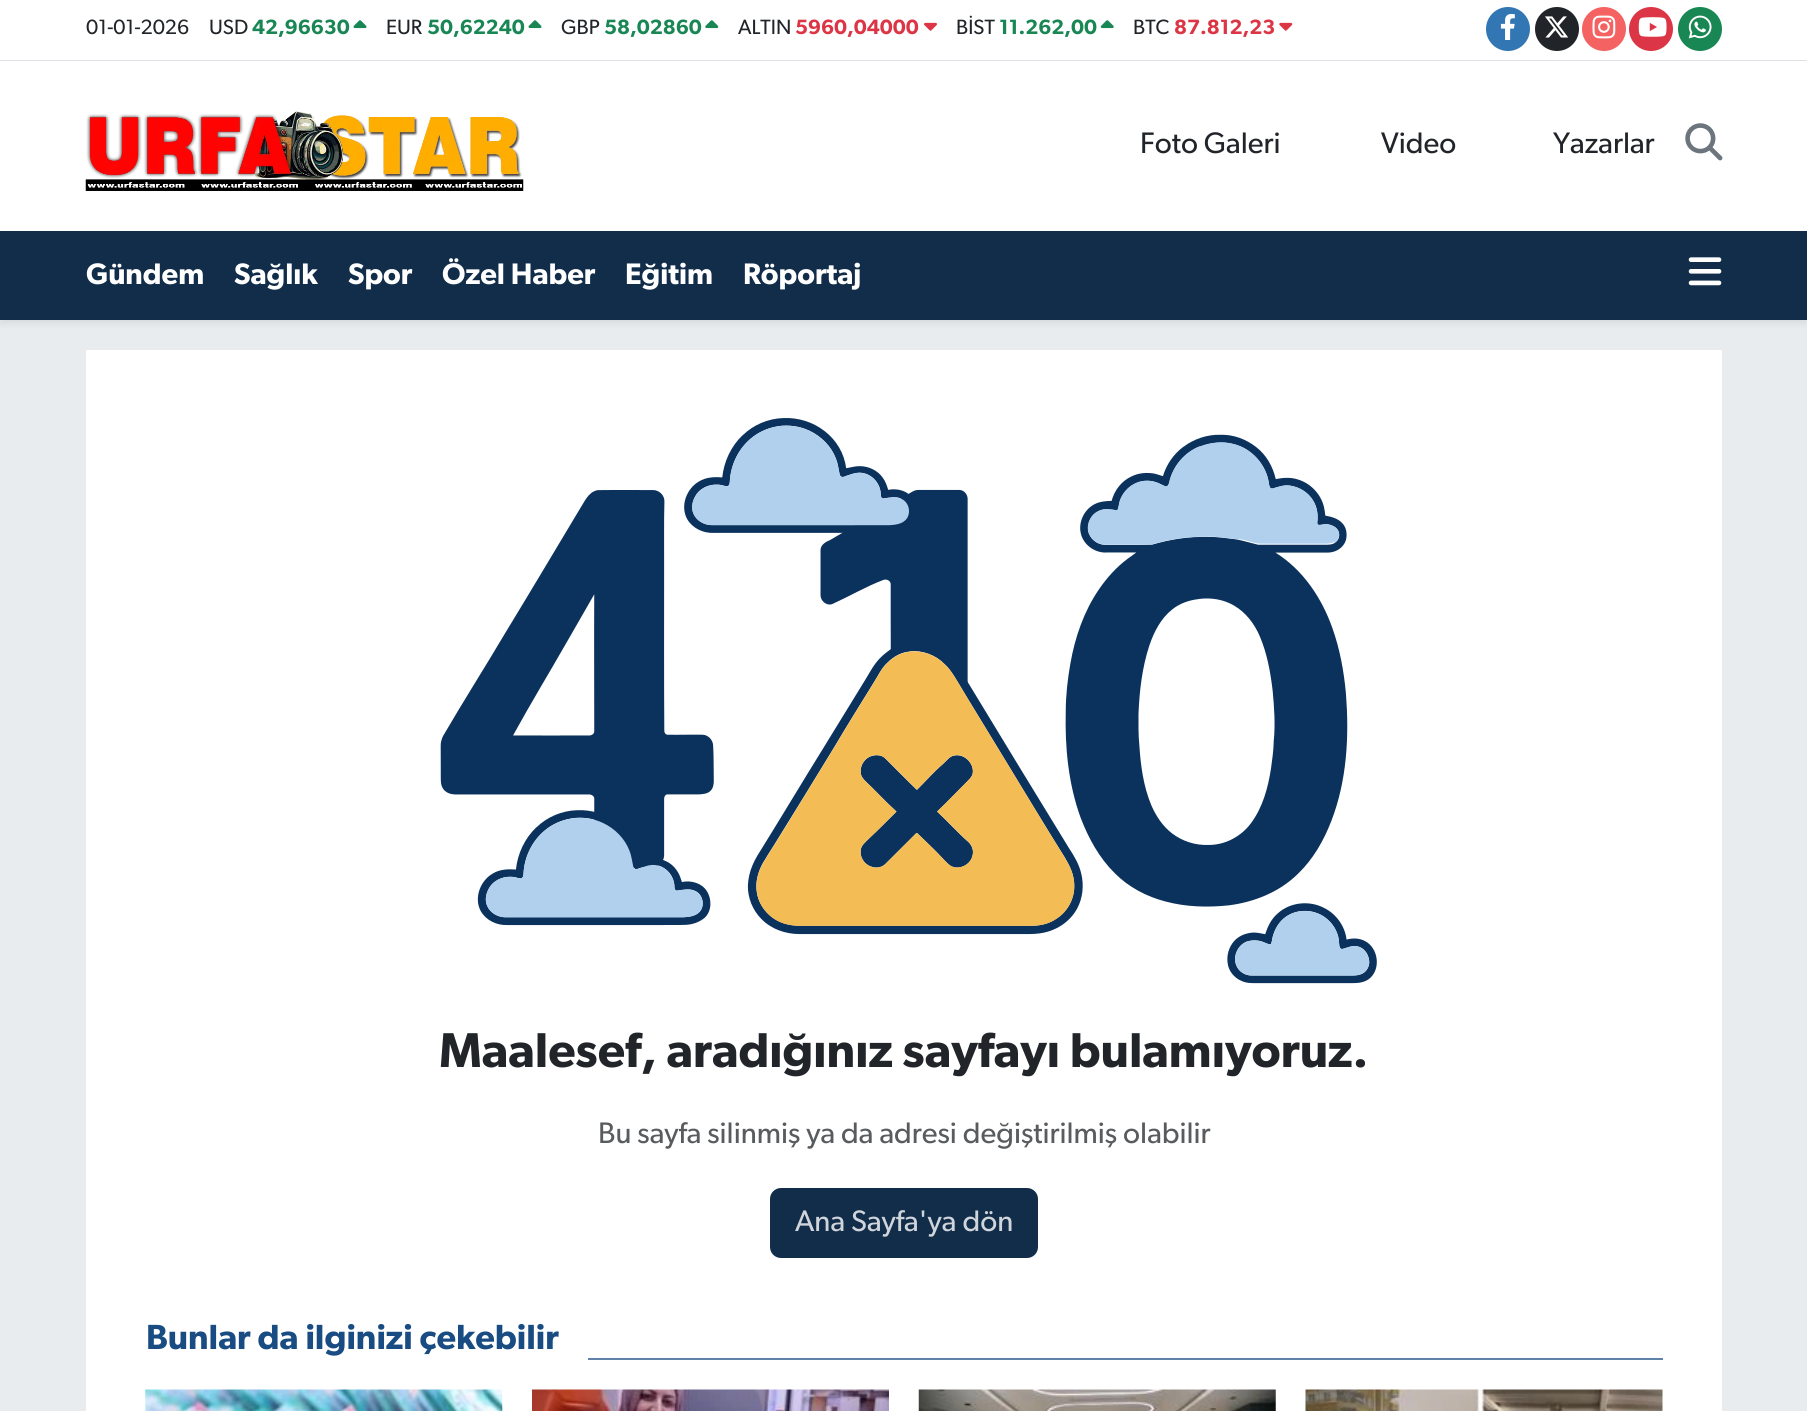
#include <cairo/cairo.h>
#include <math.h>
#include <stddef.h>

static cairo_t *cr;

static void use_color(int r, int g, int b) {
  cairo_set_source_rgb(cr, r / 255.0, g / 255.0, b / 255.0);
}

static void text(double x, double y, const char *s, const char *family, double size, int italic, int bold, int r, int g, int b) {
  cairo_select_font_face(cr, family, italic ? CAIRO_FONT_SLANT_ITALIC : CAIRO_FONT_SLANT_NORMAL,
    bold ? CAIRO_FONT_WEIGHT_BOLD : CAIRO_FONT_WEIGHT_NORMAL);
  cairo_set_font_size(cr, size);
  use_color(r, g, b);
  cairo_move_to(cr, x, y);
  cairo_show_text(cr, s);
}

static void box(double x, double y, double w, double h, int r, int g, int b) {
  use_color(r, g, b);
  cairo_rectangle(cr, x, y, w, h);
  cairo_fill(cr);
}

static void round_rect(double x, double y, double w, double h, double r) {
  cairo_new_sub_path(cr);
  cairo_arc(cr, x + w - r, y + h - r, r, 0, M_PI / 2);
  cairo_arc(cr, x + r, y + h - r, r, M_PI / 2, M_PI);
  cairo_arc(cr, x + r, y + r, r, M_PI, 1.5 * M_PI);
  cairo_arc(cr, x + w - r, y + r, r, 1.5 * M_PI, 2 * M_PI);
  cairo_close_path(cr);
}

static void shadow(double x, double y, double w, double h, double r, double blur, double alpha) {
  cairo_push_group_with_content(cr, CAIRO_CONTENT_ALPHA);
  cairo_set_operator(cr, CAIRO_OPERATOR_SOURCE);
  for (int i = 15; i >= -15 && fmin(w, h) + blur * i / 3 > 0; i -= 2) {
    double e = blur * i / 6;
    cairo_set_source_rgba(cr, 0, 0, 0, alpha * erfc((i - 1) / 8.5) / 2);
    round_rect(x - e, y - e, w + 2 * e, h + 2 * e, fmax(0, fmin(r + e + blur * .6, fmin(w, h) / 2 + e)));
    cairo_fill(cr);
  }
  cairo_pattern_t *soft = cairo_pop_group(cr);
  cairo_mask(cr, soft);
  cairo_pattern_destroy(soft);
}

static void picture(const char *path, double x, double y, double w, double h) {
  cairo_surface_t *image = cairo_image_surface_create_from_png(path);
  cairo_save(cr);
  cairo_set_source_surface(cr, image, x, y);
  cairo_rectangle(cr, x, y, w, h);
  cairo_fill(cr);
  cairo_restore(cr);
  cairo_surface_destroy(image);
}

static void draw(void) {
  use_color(233, 236, 239);
  cairo_paint(cr);
  box(0, 0, 1807, 60, 255, 255, 255);
  box(0, 60, 1807, 1, 222, 226, 230);
  picture("img_01.png", 353, 20, 14, 9);
  picture("img_01.png", 528, 20, 14, 9);
  picture("img_02.png", 705, 20, 14, 9);
  picture("img_03.png", 924, 22, 13, 9);
  picture("img_04.png", 1100, 20, 14, 9);
  picture("img_05.png", 1279, 22, 14, 9);
  use_color(50, 118, 179);
  cairo_arc(cr, 1508, 29, 21, 0, 2 * M_PI);
  cairo_fill_preserve(cr);
  cairo_stroke(cr);
  picture("img_06.png", 1500, 14, 15, 26);
  use_color(33, 37, 41);
  cairo_arc(cr, 1557, 29, 21, 0, 2 * M_PI);
  cairo_fill_preserve(cr);
  cairo_stroke(cr);
  picture("img_07.png", 1545, 16, 24, 22);
  use_color(244, 98, 98);
  cairo_arc(cr, 1604, 29, 21, 0, 2 * M_PI);
  cairo_fill_preserve(cr);
  cairo_stroke(cr);
  picture("img_08.png", 1592, 15, 24, 24);
  use_color(220, 53, 69);
  cairo_arc(cr, 1651, 29, 21, 0, 2 * M_PI);
  cairo_fill_preserve(cr);
  cairo_stroke(cr);
  picture("img_09.png", 1638, 17, 29, 20);
  use_color(25, 135, 84);
  cairo_arc(cr, 1700, 29, 21, 0, 2 * M_PI);
  cairo_fill_preserve(cr);
  cairo_stroke(cr);
  picture("img_10.png", 1688, 15, 24, 24);
  box(0, 61, 1807, 170, 255, 255, 255);
  picture("img_11.png", 85, 111, 439, 80);
  picture("img_12.png", 1685, 123, 38, 38);
  use_color(0, 0, 0);
  shadow(0, 235, 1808, 89, 0, 3.5, 0.07);
  box(0, 231, 1807, 89, 18, 45, 74);
  picture("img_13.png", 1688, 257, 34, 29);
  box(86, 350, 1636, 1061, 255, 255, 255);
  picture("img_14.png", 440, 418, 937, 566);
  use_color(18, 45, 74);
  round_rect(771, 1189, 266, 68, 10);
  cairo_fill_preserve(cr);
  cairo_stroke(cr);
  box(588, 1358, 1075, 2, 94, 130, 168);
  picture("img_15.png", 145, 1389, 358, 22);
  picture("img_16.png", 532, 1389, 357, 22);
  picture("img_17.png", 918, 1389, 358, 22);
  picture("img_18.png", 1305, 1389, 358, 22);
  text(86, 34, "01-01-2026", "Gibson", 20.75, 0, 0, 33, 37, 41);
  text(209, 34, "USD", "Gibson", 20.75, 0, 0, 33, 37, 41);
  text(252, 34, "42,96630", "Gibson SemiBold", 20.75, 0, 0, 25, 135, 84);
  text(386, 34, "EUR", "Gibson", 20.75, 0, 0, 33, 37, 41);
  text(427, 34, "50,62240", "Gibson SemiBold", 20.75, 0, 0, 25, 135, 84);
  text(561, 34, "GBP", "Gibson", 20.75, 0, 0, 33, 37, 41);
  text(604, 34, "58,02860", "Gibson SemiBold", 20.75, 0, 0, 25, 135, 84);
  text(738, 34, "ALTIN", "Gibson", 20.75, 0, 0, 33, 37, 41);
  text(795, 34, "5960,04000", "Gibson SemiBold", 20.75, 0, 0, 220, 53, 69);
  text(956, 34, "BİST", "Gibson", 20.75, 0, 0, 33, 37, 41);
  text(999, 34, "11.262,00", "Gibson SemiBold", 20.75, 0, 0, 25, 135, 84);
  text(1133, 34, "BTC", "Gibson", 20.75, 0, 0, 33, 37, 41);
  text(1174, 34, "87.812,23", "Gibson SemiBold", 20.75, 0, 0, 220, 53, 69);
  text(1140, 153, "Foto Galeri", "Gibson", 29.75, 0, 0, 33, 37, 41);
  text(1381, 153, "Video", "Gibson", 29.75, 0, 0, 33, 37, 41);
  text(1553, 153, "Yazarlar", "Gibson", 29.75, 0, 0, 33, 37, 41);
  text(86, 284, "Gündem", "Gibson SemiBold", 29.75, 0, 0, 255, 255, 255);
  text(234, 284, "Sağlık", "Gibson SemiBold", 29.75, 0, 0, 255, 255, 255);
  text(348, 284, "Spor", "Gibson SemiBold", 29.75, 0, 0, 255, 255, 255);
  text(442, 284, "Özel Haber", "Gibson SemiBold", 29.75, 0, 0, 255, 255, 255);
  text(625, 284, "Eğitim", "Gibson SemiBold", 29.75, 0, 0, 255, 255, 255);
  text(743, 284, "Röportaj", "Gibson SemiBold", 29.75, 0, 0, 255, 255, 255);
  text(439, 1067, "Maalesef, aradığınız sayfayı bulamıyoruz.", "Gibson SemiBold", 49, 0, 0, 33, 37, 41);
  text(598, 1143, "Bu sayfa silinmiş ya da adresi değiştirilmiş olabilir", "Gibson", 29.75, 0, 0, 89, 92, 95);
  text(795, 1231, "Ana Sayfa'ya dön", "Gibson", 29.75, 0, 0, 208, 213, 219);
  text(146, 1349, "Bunlar da ilginizi çekebilir", "Gibson SemiBold", 35, 0, 0, 25, 76, 130);
}

int main(void) {
  cairo_surface_t *surface = cairo_image_surface_create(CAIRO_FORMAT_RGB24, 1807, 1411);
  cr = cairo_create(surface);
  cairo_font_options_t *options = cairo_font_options_create();
  cairo_font_options_set_hint_metrics(options, CAIRO_HINT_METRICS_OFF);
  cairo_font_options_set_hint_style(options, CAIRO_HINT_STYLE_NONE);
  cairo_set_font_options(cr, options);
  cairo_set_miter_limit(cr, 4);
  draw();
  cairo_surface_write_to_png(surface, "out.png");
  cairo_font_options_destroy(options);
  cairo_destroy(cr);
  cairo_surface_destroy(surface);
  return 0;
}
